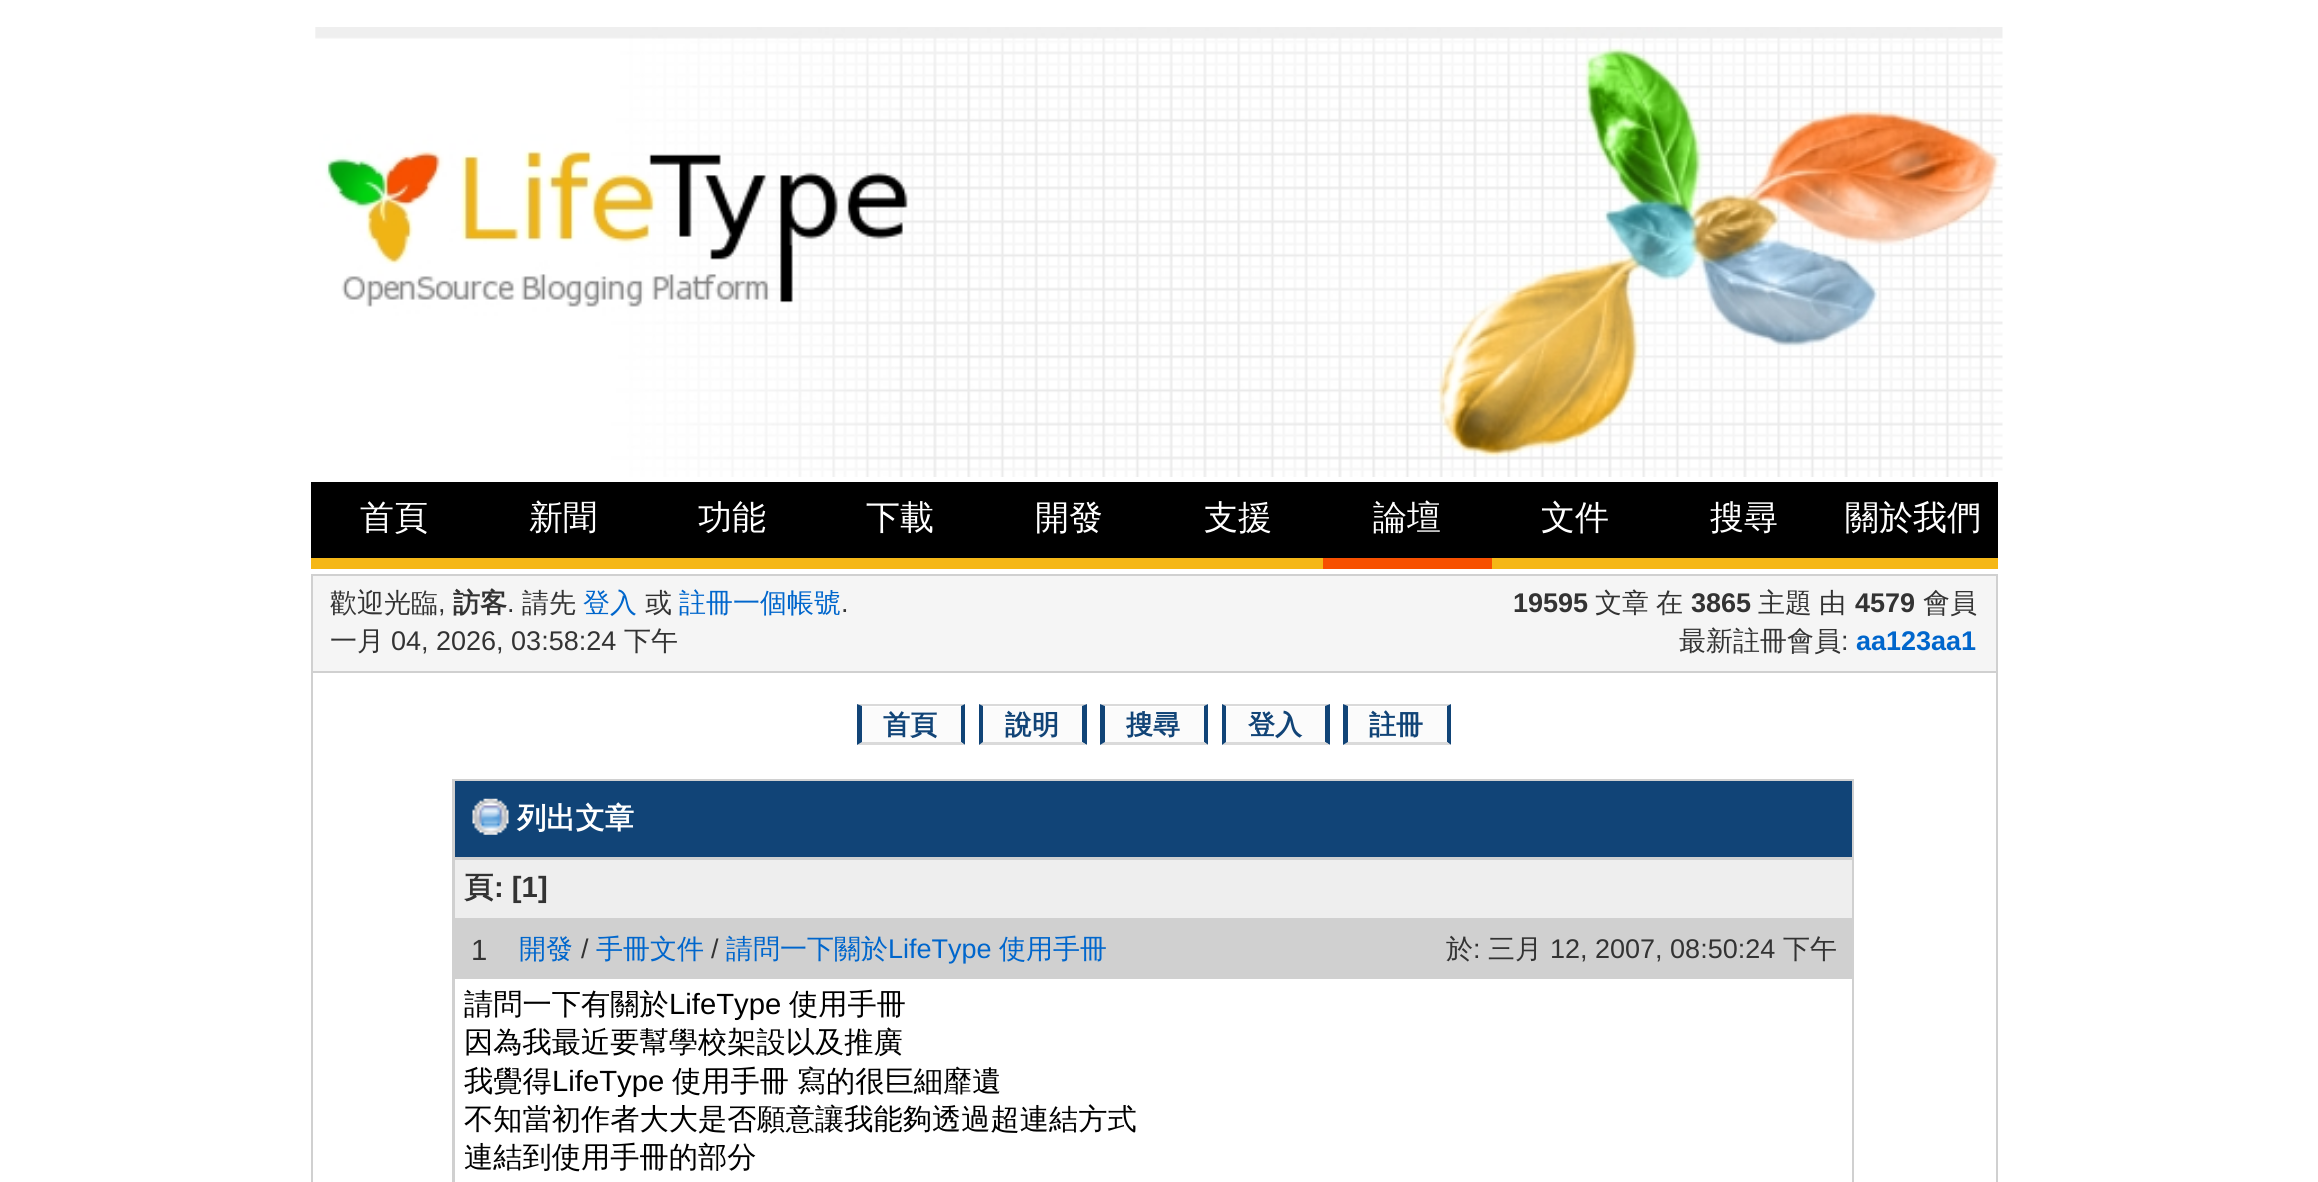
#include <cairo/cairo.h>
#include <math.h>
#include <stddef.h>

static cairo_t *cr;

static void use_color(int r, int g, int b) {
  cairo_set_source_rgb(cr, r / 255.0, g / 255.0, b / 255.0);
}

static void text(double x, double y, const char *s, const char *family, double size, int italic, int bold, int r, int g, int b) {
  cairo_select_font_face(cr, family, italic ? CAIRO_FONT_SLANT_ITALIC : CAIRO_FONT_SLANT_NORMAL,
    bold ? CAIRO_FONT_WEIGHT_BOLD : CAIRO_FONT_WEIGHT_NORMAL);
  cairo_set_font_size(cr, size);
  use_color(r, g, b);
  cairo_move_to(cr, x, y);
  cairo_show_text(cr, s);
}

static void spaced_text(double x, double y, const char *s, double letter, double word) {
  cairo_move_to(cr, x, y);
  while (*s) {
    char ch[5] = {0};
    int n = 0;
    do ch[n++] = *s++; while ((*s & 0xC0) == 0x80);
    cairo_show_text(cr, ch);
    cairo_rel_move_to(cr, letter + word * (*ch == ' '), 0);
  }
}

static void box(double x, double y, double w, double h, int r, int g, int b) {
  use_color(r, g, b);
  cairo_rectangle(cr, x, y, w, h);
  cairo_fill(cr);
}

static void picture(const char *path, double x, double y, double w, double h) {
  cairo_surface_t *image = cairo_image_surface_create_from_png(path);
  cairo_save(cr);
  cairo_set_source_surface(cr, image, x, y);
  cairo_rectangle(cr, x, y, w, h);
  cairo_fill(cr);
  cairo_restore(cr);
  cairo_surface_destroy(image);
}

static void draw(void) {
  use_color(255, 255, 255);
  cairo_paint(cr);
  picture("img_01.png", 315, 27, 1688, 450);
  box(311, 482, 1687, 76, 0, 0, 0);
  box(311, 558, 1012, 11, 245, 183, 22);
  box(1323, 558, 169, 11, 247, 80, 0);
  box(1492, 558, 506, 11, 245, 183, 22);
  box(1996, 574, 2, 608, 208, 208, 208);
  box(311, 574, 2, 608, 208, 208, 208);
  box(313, 576, 1683, 95, 245, 245, 245);
  box(313, 574, 1683, 2, 208, 208, 208);
  box(313, 671, 1683, 2, 208, 208, 208);
  box(862, 707, 99, 35, 251, 251, 251);
  use_color(218, 218, 218);
  cairo_new_path(cr);
  cairo_move_to(cr, 857, 704);
  cairo_line_to(cr, 965, 704);
  cairo_line_to(cr, 961, 706);
  cairo_line_to(cr, 862, 706);
  cairo_close_path(cr);
  cairo_fill(cr);
  use_color(17, 68, 119);
  cairo_new_path(cr);
  cairo_move_to(cr, 965, 704);
  cairo_line_to(cr, 965, 745);
  cairo_line_to(cr, 961, 742);
  cairo_line_to(cr, 961, 706);
  cairo_close_path(cr);
  cairo_fill(cr);
  use_color(218, 218, 218);
  cairo_new_path(cr);
  cairo_move_to(cr, 965, 745);
  cairo_line_to(cr, 857, 745);
  cairo_line_to(cr, 862, 742);
  cairo_line_to(cr, 961, 742);
  cairo_close_path(cr);
  cairo_fill(cr);
  use_color(17, 68, 119);
  cairo_new_path(cr);
  cairo_move_to(cr, 857, 745);
  cairo_line_to(cr, 857, 704);
  cairo_line_to(cr, 862, 706);
  cairo_line_to(cr, 862, 742);
  cairo_close_path(cr);
  cairo_fill(cr);
  box(983, 707, 99, 35, 251, 251, 251);
  use_color(218, 218, 218);
  cairo_new_path(cr);
  cairo_move_to(cr, 979, 704);
  cairo_line_to(cr, 1087, 704);
  cairo_line_to(cr, 1082, 706);
  cairo_line_to(cr, 983, 706);
  cairo_close_path(cr);
  cairo_fill(cr);
  use_color(17, 68, 119);
  cairo_new_path(cr);
  cairo_move_to(cr, 1087, 704);
  cairo_line_to(cr, 1087, 745);
  cairo_line_to(cr, 1082, 742);
  cairo_line_to(cr, 1082, 706);
  cairo_close_path(cr);
  cairo_fill(cr);
  use_color(218, 218, 218);
  cairo_new_path(cr);
  cairo_move_to(cr, 1087, 745);
  cairo_line_to(cr, 979, 745);
  cairo_line_to(cr, 983, 742);
  cairo_line_to(cr, 1082, 742);
  cairo_close_path(cr);
  cairo_fill(cr);
  use_color(17, 68, 119);
  cairo_new_path(cr);
  cairo_move_to(cr, 979, 745);
  cairo_line_to(cr, 979, 704);
  cairo_line_to(cr, 983, 706);
  cairo_line_to(cr, 983, 742);
  cairo_close_path(cr);
  cairo_fill(cr);
  box(1105, 707, 99, 35, 251, 251, 251);
  use_color(218, 218, 218);
  cairo_new_path(cr);
  cairo_move_to(cr, 1100, 704);
  cairo_line_to(cr, 1208, 704);
  cairo_line_to(cr, 1204, 706);
  cairo_line_to(cr, 1105, 706);
  cairo_close_path(cr);
  cairo_fill(cr);
  use_color(17, 68, 119);
  cairo_new_path(cr);
  cairo_move_to(cr, 1208, 704);
  cairo_line_to(cr, 1208, 745);
  cairo_line_to(cr, 1204, 742);
  cairo_line_to(cr, 1204, 706);
  cairo_close_path(cr);
  cairo_fill(cr);
  use_color(218, 218, 218);
  cairo_new_path(cr);
  cairo_move_to(cr, 1208, 745);
  cairo_line_to(cr, 1100, 745);
  cairo_line_to(cr, 1105, 742);
  cairo_line_to(cr, 1204, 742);
  cairo_close_path(cr);
  cairo_fill(cr);
  use_color(17, 68, 119);
  cairo_new_path(cr);
  cairo_move_to(cr, 1100, 745);
  cairo_line_to(cr, 1100, 704);
  cairo_line_to(cr, 1105, 706);
  cairo_line_to(cr, 1105, 742);
  cairo_close_path(cr);
  cairo_fill(cr);
  box(1226, 707, 99, 35, 251, 251, 251);
  use_color(218, 218, 218);
  cairo_new_path(cr);
  cairo_move_to(cr, 1222, 704);
  cairo_line_to(cr, 1330, 704);
  cairo_line_to(cr, 1325, 706);
  cairo_line_to(cr, 1226, 706);
  cairo_close_path(cr);
  cairo_fill(cr);
  use_color(17, 68, 119);
  cairo_new_path(cr);
  cairo_move_to(cr, 1330, 704);
  cairo_line_to(cr, 1330, 745);
  cairo_line_to(cr, 1325, 742);
  cairo_line_to(cr, 1325, 706);
  cairo_close_path(cr);
  cairo_fill(cr);
  use_color(218, 218, 218);
  cairo_new_path(cr);
  cairo_move_to(cr, 1330, 745);
  cairo_line_to(cr, 1222, 745);
  cairo_line_to(cr, 1226, 742);
  cairo_line_to(cr, 1325, 742);
  cairo_close_path(cr);
  cairo_fill(cr);
  use_color(17, 68, 119);
  cairo_new_path(cr);
  cairo_move_to(cr, 1222, 745);
  cairo_line_to(cr, 1222, 704);
  cairo_line_to(cr, 1226, 706);
  cairo_line_to(cr, 1226, 742);
  cairo_close_path(cr);
  cairo_fill(cr);
  box(1348, 707, 99, 35, 251, 251, 251);
  use_color(218, 218, 218);
  cairo_new_path(cr);
  cairo_move_to(cr, 1343, 704);
  cairo_line_to(cr, 1451, 704);
  cairo_line_to(cr, 1447, 706);
  cairo_line_to(cr, 1348, 706);
  cairo_close_path(cr);
  cairo_fill(cr);
  use_color(17, 68, 119);
  cairo_new_path(cr);
  cairo_move_to(cr, 1451, 704);
  cairo_line_to(cr, 1451, 745);
  cairo_line_to(cr, 1447, 742);
  cairo_line_to(cr, 1447, 706);
  cairo_close_path(cr);
  cairo_fill(cr);
  use_color(218, 218, 218);
  cairo_new_path(cr);
  cairo_move_to(cr, 1451, 745);
  cairo_line_to(cr, 1343, 745);
  cairo_line_to(cr, 1348, 742);
  cairo_line_to(cr, 1447, 742);
  cairo_close_path(cr);
  cairo_fill(cr);
  use_color(17, 68, 119);
  cairo_new_path(cr);
  cairo_move_to(cr, 1343, 745);
  cairo_line_to(cr, 1343, 704);
  cairo_line_to(cr, 1348, 706);
  cairo_line_to(cr, 1348, 742);
  cairo_close_path(cr);
  cairo_fill(cr);
  box(452, 779, 1402, 403, 208, 208, 208);
  box(455, 781, 1397, 76, 17, 68, 119);
  picture("img_02.png", 472, 798, 37, 37);
  box(455, 860, 1397, 58, 238, 238, 238);
  box(455, 979, 1397, 203, 255, 255, 255);
  text(360, 529, "首頁", "WenQuanYi Zen Hei Medium", 34, 0, 0, 255, 255, 255);
  text(529, 529, "新聞", "WenQuanYi Zen Hei Medium", 34, 0, 0, 255, 255, 255);
  text(698, 529, "功能", "WenQuanYi Zen Hei Medium", 34, 0, 0, 255, 255, 255);
  text(866, 529, "下載", "WenQuanYi Zen Hei Medium", 34, 0, 0, 255, 255, 255);
  text(1035, 529, "開發", "WenQuanYi Zen Hei Medium", 34, 0, 0, 255, 255, 255);
  text(1204, 529, "支援", "WenQuanYi Zen Hei Medium", 34, 0, 0, 255, 255, 255);
  text(1373, 529, "論壇", "WenQuanYi Zen Hei Medium", 34, 0, 0, 255, 255, 255);
  text(1541, 529, "文件", "WenQuanYi Zen Hei Medium", 34, 0, 0, 255, 255, 255);
  text(1710, 529, "搜尋", "WenQuanYi Zen Hei Medium", 34, 0, 0, 255, 255, 255);
  text(1845, 529, "關於我們", "WenQuanYi Zen Hei Medium", 34, 0, 0, 255, 255, 255);
  text(330, 612, "歡迎光臨", "WenQuanYi Zen Hei Medium", 27, 0, 0, 51, 51, 51);
  text(438, 612, ",", "Liberation Sans", 27, 0, 0, 51, 51, 51);
  text(453, 612, "訪客", "WenQuanYi Zen Hei", 27, 0, 1, 51, 51, 51);
  text(507, 612, ".", "Liberation Sans", 27, 0, 0, 51, 51, 51);
  text(522, 612, "請先", "WenQuanYi Zen Hei Medium", 27, 0, 0, 51, 51, 51);
  text(583, 612, "登入", "WenQuanYi Zen Hei Medium", 27, 0, 0, 0, 102, 204);
  text(645, 612, "或", "WenQuanYi Zen Hei Medium", 27, 0, 0, 51, 51, 51);
  text(679, 612, "註冊一個帳號", "WenQuanYi Zen Hei Medium", 27, 0, 0, 0, 102, 204);
  text(841, 612, ".", "Liberation Sans", 27, 0, 0, 51, 51, 51);
  text(330, 650, "一月", "WenQuanYi Zen Hei Medium", 27, 0, 0, 51, 51, 51);
  text(391, 650, "04, 2026, 03:58:24", "Liberation Sans", 27, 0, 0, 51, 51, 51);
  text(624, 650, "下午", "WenQuanYi Zen Hei Medium", 27, 0, 0, 51, 51, 51);
  text(1513, 612, "19595", "Liberation Sans", 27, 0, 1, 51, 51, 51);
  cairo_select_font_face(cr, "WenQuanYi Zen Hei Medium", CAIRO_FONT_SLANT_NORMAL, CAIRO_FONT_WEIGHT_NORMAL);
  spaced_text(1595, 612, "文章 在", 0, -1);
  text(1691, 612, "3865", "Liberation Sans", 27, 0, 1, 51, 51, 51);
  cairo_select_font_face(cr, "WenQuanYi Zen Hei Medium", CAIRO_FONT_SLANT_NORMAL, CAIRO_FONT_WEIGHT_NORMAL);
  spaced_text(1758, 612, "主題 由", 0, -1);
  text(1855, 612, "4579", "Liberation Sans", 27, 0, 1, 51, 51, 51);
  text(1923, 612, "會員", "WenQuanYi Zen Hei Medium", 27, 0, 0, 51, 51, 51);
  text(1679, 650, "最新註冊會員", "WenQuanYi Zen Hei Medium", 27, 0, 0, 51, 51, 51);
  text(1841, 650, ":", "Liberation Sans", 27, 0, 0, 51, 51, 51);
  text(1856, 650, "aa123aa1", "Liberation Sans", 27, 0, 1, 0, 102, 204);
  text(883, 734, "首頁", "WenQuanYi Zen Hei", 27, 0, 1, 17, 68, 119);
  text(1005, 734, "說明", "WenQuanYi Zen Hei", 27, 0, 1, 17, 68, 119);
  text(1126, 734, "搜尋", "WenQuanYi Zen Hei", 27, 0, 1, 17, 68, 119);
  text(1248, 734, "登入", "WenQuanYi Zen Hei", 27, 0, 1, 17, 68, 119);
  text(1369, 734, "註冊", "WenQuanYi Zen Hei", 27, 0, 1, 17, 68, 119);
  text(517, 828, "列出文章", "WenQuanYi Zen Hei", 29.25, 0, 1, 255, 255, 255);
  text(464, 897, "頁", "WenQuanYi Zen Hei", 29.25, 0, 1, 51, 51, 51);
  text(494, 897, ": [1]", "Liberation Sans", 29.25, 0, 1, 51, 51, 51);
  text(471, 960, "1", "Liberation Sans", 29.25, 0, 0, 51, 51, 51);
  text(519, 958, "開發", "WenQuanYi Zen Hei Medium", 27, 0, 0, 0, 102, 204);
  text(581, 958, "/", "Liberation Sans", 27, 0, 0, 51, 51, 51);
  text(596, 958, "手冊文件", "WenQuanYi Zen Hei Medium", 27, 0, 0, 0, 102, 204);
  text(711, 958, "/", "Liberation Sans", 27, 0, 0, 51, 51, 51);
  text(726, 958, "請問一下關於", "WenQuanYi Zen Hei Medium", 27, 0, 0, 0, 102, 204);
  text(888, 958, "LifeType", "Liberation Sans", 27, 0, 0, 0, 102, 204);
  text(999, 958, "使用手冊", "WenQuanYi Zen Hei Medium", 27, 0, 0, 0, 102, 204);
  text(1446, 958, "於", "WenQuanYi Zen Hei Medium", 27, 0, 0, 51, 51, 51);
  text(1473, 958, ":", "Liberation Sans", 27, 0, 0, 51, 51, 51);
  text(1488, 958, "三月", "WenQuanYi Zen Hei Medium", 27, 0, 0, 51, 51, 51);
  text(1550, 958, "12, 2007, 08:50:24", "Liberation Sans", 27, 0, 0, 51, 51, 51);
  text(1783, 958, "下午", "WenQuanYi Zen Hei Medium", 27, 0, 0, 51, 51, 51);
  text(464, 1014, "請問一下有關於", "WenQuanYi Zen Hei Medium", 29.25, 0, 0, 0, 0, 0);
  text(669, 1014, "LifeType", "Liberation Sans", 29.25, 0, 0, 0, 0, 0);
  text(789, 1014, "使用手冊", "WenQuanYi Zen Hei Medium", 29.25, 0, 0, 0, 0, 0);
  text(464, 1052, "因為我最近要幫學校架設以及推廣", "WenQuanYi Zen Hei Medium", 29.25, 0, 0, 0, 0, 0);
  text(464, 1091, "我覺得", "WenQuanYi Zen Hei Medium", 29.25, 0, 0, 0, 0, 0);
  text(552, 1091, "LifeType", "Liberation Sans", 29.25, 0, 0, 0, 0, 0);
  cairo_select_font_face(cr, "WenQuanYi Zen Hei Medium", CAIRO_FONT_SLANT_NORMAL, CAIRO_FONT_WEIGHT_NORMAL);
  spaced_text(672, 1091, "使用手冊 寫的很巨細靡遺", 0, -1);
  text(464, 1129, "不知當初作者大大是否願意讓我能夠透過超連結方式", "WenQuanYi Zen Hei Medium", 29.25, 0, 0, 0, 0, 0);
  text(464, 1167, "連結到使用手冊的部分", "WenQuanYi Zen Hei Medium", 29.25, 0, 0, 0, 0, 0);
}

int main(void) {
  cairo_surface_t *surface = cairo_image_surface_create(CAIRO_FORMAT_RGB24, 2318, 1182);
  cr = cairo_create(surface);
  cairo_font_options_t *options = cairo_font_options_create();
  cairo_font_options_set_hint_metrics(options, CAIRO_HINT_METRICS_OFF);
  cairo_font_options_set_hint_style(options, CAIRO_HINT_STYLE_NONE);
  cairo_set_font_options(cr, options);
  cairo_set_miter_limit(cr, 4);
  draw();
  cairo_surface_write_to_png(surface, "out.png");
  cairo_font_options_destroy(options);
  cairo_destroy(cr);
  cairo_surface_destroy(surface);
  return 0;
}
